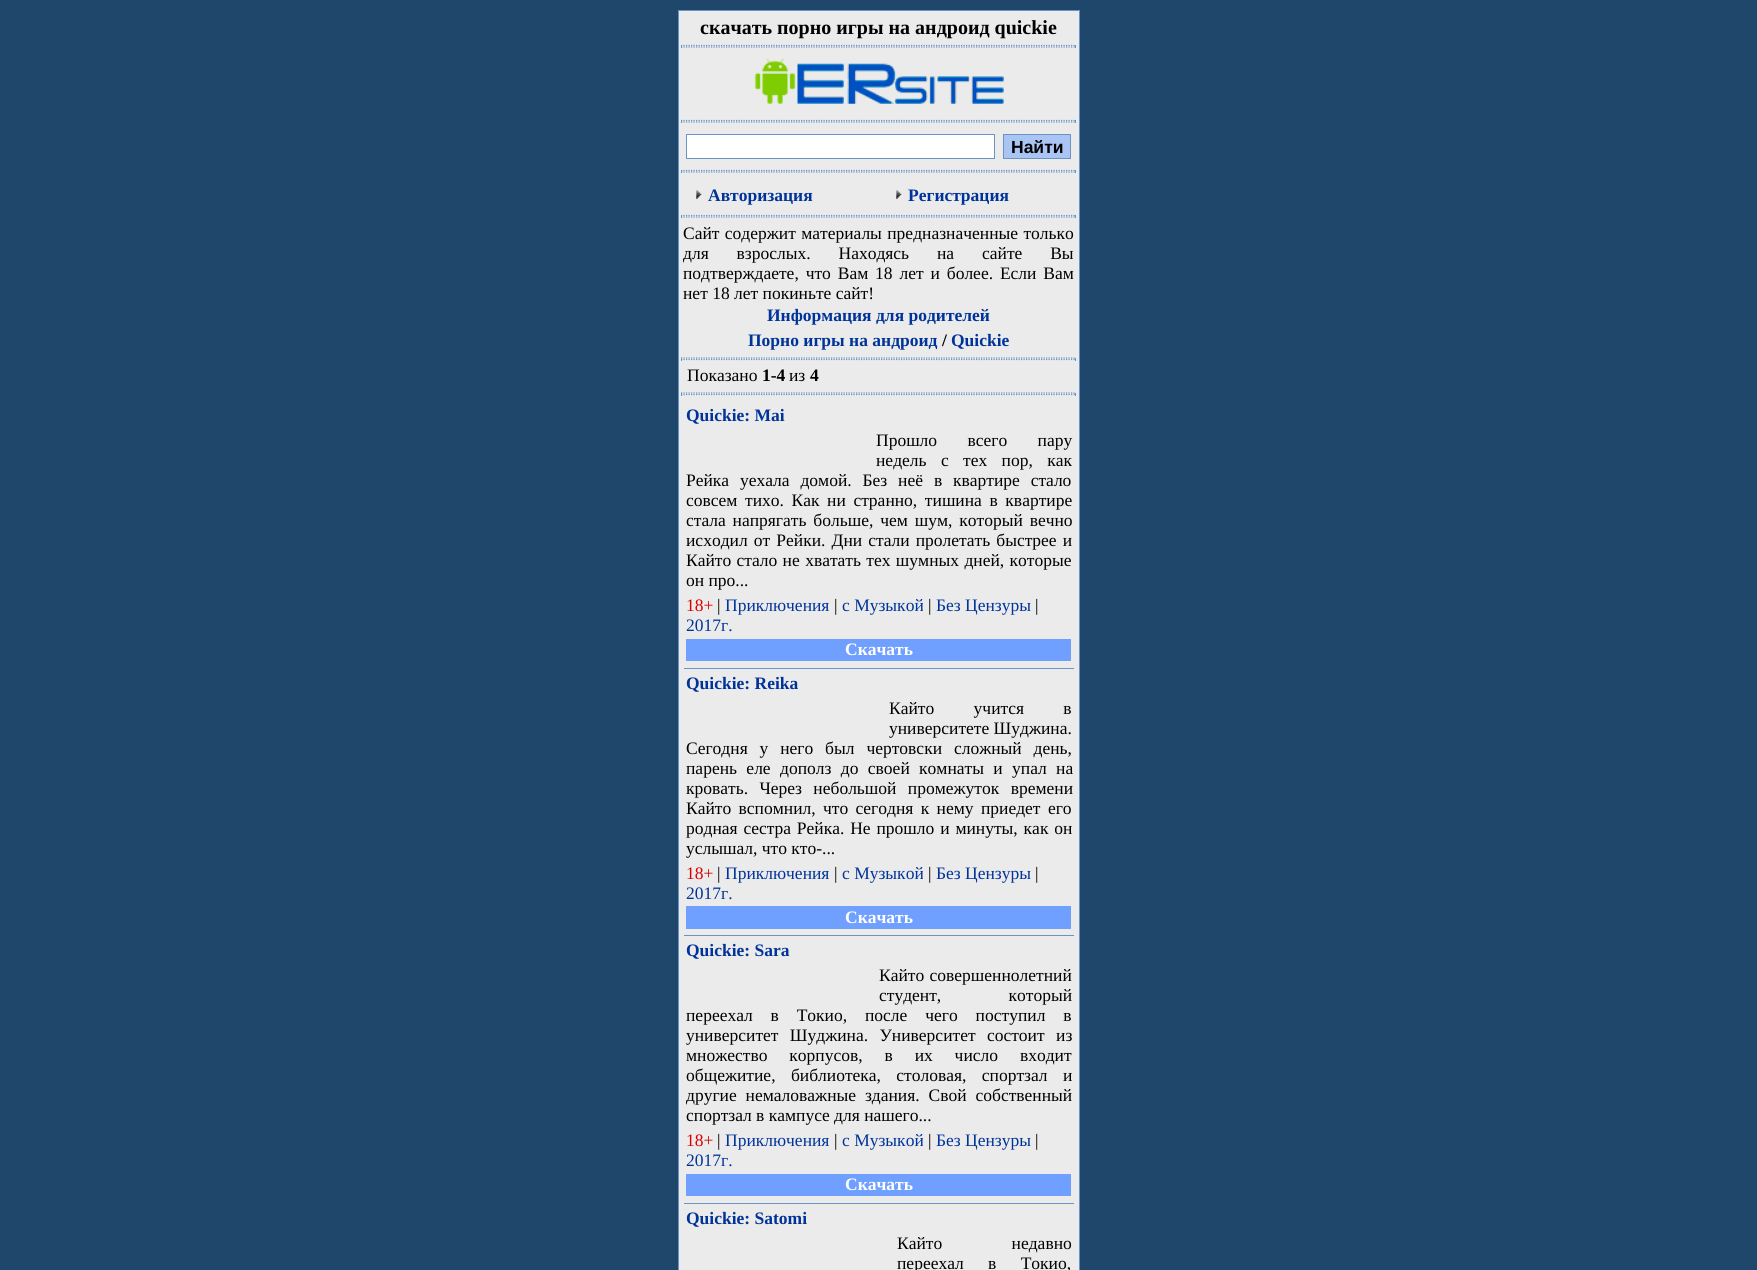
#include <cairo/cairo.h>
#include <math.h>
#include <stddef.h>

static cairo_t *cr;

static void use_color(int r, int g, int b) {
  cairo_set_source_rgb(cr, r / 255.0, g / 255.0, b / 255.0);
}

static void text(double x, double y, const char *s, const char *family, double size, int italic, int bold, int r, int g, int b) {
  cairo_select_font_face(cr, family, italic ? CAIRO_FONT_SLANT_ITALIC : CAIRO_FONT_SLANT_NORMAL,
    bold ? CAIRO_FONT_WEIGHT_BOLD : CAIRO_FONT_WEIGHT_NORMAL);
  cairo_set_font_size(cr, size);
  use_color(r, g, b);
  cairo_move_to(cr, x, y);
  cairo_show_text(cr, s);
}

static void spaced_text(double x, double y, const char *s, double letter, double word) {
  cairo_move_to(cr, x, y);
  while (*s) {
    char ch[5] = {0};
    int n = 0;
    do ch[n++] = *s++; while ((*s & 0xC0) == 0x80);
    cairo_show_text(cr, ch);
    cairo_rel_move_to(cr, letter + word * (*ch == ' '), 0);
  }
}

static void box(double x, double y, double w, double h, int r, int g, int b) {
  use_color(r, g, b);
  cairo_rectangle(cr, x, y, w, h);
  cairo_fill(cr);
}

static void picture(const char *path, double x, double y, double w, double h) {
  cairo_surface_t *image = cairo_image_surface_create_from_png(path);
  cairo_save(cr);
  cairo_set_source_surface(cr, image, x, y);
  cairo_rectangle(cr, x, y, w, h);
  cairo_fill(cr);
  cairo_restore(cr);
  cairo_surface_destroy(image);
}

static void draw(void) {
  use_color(31, 71, 107);
  cairo_paint(cr);
  use_color(235, 235, 235);
  cairo_rectangle(cr, 678.5, 10.5, 401, 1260);
  cairo_fill_preserve(cr);
  use_color(108, 147, 197);
  cairo_set_line_width(cr, 1);
  cairo_stroke(cr);
  cairo_new_path(cr);
  cairo_move_to(cr, 681, 45.5);
  cairo_line_to(cr, 1076, 45.5);
  cairo_set_line_width(cr, 1.2);
  cairo_set_dash(cr, (double[]){1.25, 1.25}, 2, 0);
  cairo_stroke(cr);
  box(1075, 45, 1, 3, 108, 147, 197);
  cairo_new_path(cr);
  cairo_move_to(cr, 681, 47);
  cairo_line_to(cr, 1076, 47);
  cairo_stroke(cr);
  box(681, 45, 1, 3, 108, 147, 197);
  picture("img_01.png", 754, 58, 250, 46);
  cairo_new_path(cr);
  cairo_move_to(cr, 681, 120.5);
  cairo_line_to(cr, 1076, 120.5);
  cairo_stroke(cr);
  box(1075, 120, 1, 3, 108, 147, 197);
  cairo_new_path(cr);
  cairo_move_to(cr, 681, 122);
  cairo_line_to(cr, 1076, 122);
  cairo_stroke(cr);
  box(681, 120, 1, 3, 108, 147, 197);
  use_color(255, 255, 255);
  cairo_rectangle(cr, 686.5, 134.5, 308, 24);
  cairo_fill_preserve(cr);
  use_color(108, 147, 197);
  cairo_set_line_width(cr, 1);
  cairo_set_dash(cr, NULL, 0, 0);
  cairo_stroke(cr);
  use_color(170, 197, 244);
  cairo_rectangle(cr, 1003.5, 134.5, 67, 24);
  cairo_fill_preserve(cr);
  use_color(108, 147, 197);
  cairo_stroke(cr);
  cairo_new_path(cr);
  cairo_move_to(cr, 681, 170.5);
  cairo_line_to(cr, 1076, 170.5);
  cairo_set_line_width(cr, 1.2);
  cairo_set_dash(cr, (double[]){1.25, 1.25}, 2, 0);
  cairo_stroke(cr);
  box(1075, 170, 1, 3, 108, 147, 197);
  cairo_new_path(cr);
  cairo_move_to(cr, 681, 172);
  cairo_line_to(cr, 1076, 172);
  cairo_stroke(cr);
  box(681, 170, 1, 3, 108, 147, 197);
  picture("img_02.png", 696, 190, 6, 9);
  picture("img_02.png", 896, 190, 6, 9);
  cairo_new_path(cr);
  cairo_move_to(cr, 681, 215.5);
  cairo_line_to(cr, 1076, 215.5);
  cairo_stroke(cr);
  box(1075, 215, 1, 3, 108, 147, 197);
  cairo_new_path(cr);
  cairo_move_to(cr, 681, 217);
  cairo_line_to(cr, 1076, 217);
  cairo_stroke(cr);
  box(681, 215, 1, 3, 108, 147, 197);
  cairo_new_path(cr);
  cairo_move_to(cr, 681, 358);
  cairo_line_to(cr, 1076, 358);
  cairo_stroke(cr);
  box(1075, 358, 1, 3, 108, 147, 197);
  cairo_new_path(cr);
  cairo_move_to(cr, 681, 359.5);
  cairo_line_to(cr, 1076, 359.5);
  cairo_stroke(cr);
  box(681, 358, 1, 3, 108, 147, 197);
  cairo_new_path(cr);
  cairo_move_to(cr, 681, 393);
  cairo_line_to(cr, 1076, 393);
  cairo_stroke(cr);
  box(1075, 393, 1, 3, 108, 147, 197);
  cairo_new_path(cr);
  cairo_move_to(cr, 681, 394.5);
  cairo_line_to(cr, 1076, 394.5);
  cairo_stroke(cr);
  box(681, 393, 1, 3, 108, 147, 197);
  box(684, 668, 390, 1, 108, 147, 197);
  box(686, 639, 385, 22, 112, 160, 255);
  box(684, 935, 390, 1, 108, 147, 197);
  box(686, 906, 385, 23, 112, 160, 255);
  box(684, 1203, 390, 1, 108, 147, 197);
  box(686, 1174, 385, 22, 112, 160, 255);
  text(700, 34, "скачать порно игры на андроид quickie", "Liberation Serif", 20, 0, 1, 0, 0, 0);
  text(1011, 153, "Найти", "Liberation Sans", 17.5, 0, 1, 0, 0, 0);
  text(708, 201, "Авторизация", "Liberation Serif", 17.5, 0, 1, 0, 51, 153);
  text(908, 201, "Регистрация", "Liberation Serif", 17.5, 0, 1, 0, 51, 153);
  cairo_select_font_face(cr, "Liberation Serif", CAIRO_FONT_SLANT_NORMAL, CAIRO_FONT_WEIGHT_NORMAL);
  use_color(0, 0, 0);
  spaced_text(683, 239, "Сайт содержит материалы предназначенные только", 0, 1);
  spaced_text(683, 259, "для взрослых. Находясь на сайте Вы", 0, 23.5);
  spaced_text(683, 279, "подтверждаете, что Вам 18 лет и более. Если Вам", 0, 2.5);
  text(683, 299, "нет 18 лет покиньте сайт!", "Liberation Serif", 17.5, 0, 0, 0, 0, 0);
  text(767, 321, "Информация для родителей", "Liberation Serif", 17.5, 0, 1, 0, 51, 153);
  text(748, 346, "Порно игры на андроид", "Liberation Serif", 17.5, 0, 1, 0, 51, 153);
  text(942, 346, "/", "Liberation Serif", 17.5, 0, 1, 0, 0, 0);
  text(951, 346, "Quickie", "Liberation Serif", 17.5, 0, 1, 0, 51, 153);
  text(687, 381, "Показано", "Liberation Serif", 17.5, 0, 0, 0, 0, 0);
  text(762, 381, "1-4", "Liberation Serif", 17.5, 0, 1, 0, 0, 0);
  text(789, 381, "из", "Liberation Serif", 17.5, 0, 0, 0, 0, 0);
  text(810, 381, "4", "Liberation Serif", 17.5, 0, 1, 0, 0, 0);
  text(686, 421, "Quickie: Mai", "Liberation Serif", 17.5, 0, 1, 0, 51, 153);
  cairo_select_font_face(cr, "Liberation Serif", CAIRO_FONT_SLANT_NORMAL, CAIRO_FONT_WEIGHT_NORMAL);
  use_color(0, 0, 0);
  spaced_text(876, 446, "Прошло всего пару", 0, 26);
  spaced_text(876, 466, "недель с тех пор, как", 0, 10);
  spaced_text(686, 486, "Рейка уехала домой. Без неё в квартире стало", 0, 6.5);
  spaced_text(686, 506, "совсем тихо. Как ни странно, тишина в квартире", 0, 3.25);
  spaced_text(686, 526, "стала напрягать больше, чем шум, который вечно", 0, 2.5);
  spaced_text(686, 546, "исходил от Рейки. Дни стали пролетать быстрее и", 0, 1.75);
  spaced_text(686, 566, "Кайто стало не хватать тех шумных дней, которые", 0, 1);
  text(686, 586, "он про...", "Liberation Serif", 17.5, 0, 0, 0, 0, 0);
  text(686, 611, "18+", "Liberation Serif", 17.5, 0, 0, 214, 2, 2);
  text(717, 611, "|", "Liberation Serif", 17.5, 0, 0, 0, 0, 0);
  text(725, 611, "Приключения", "Liberation Serif", 17.5, 0, 0, 0, 51, 153);
  text(834, 611, "|", "Liberation Serif", 17.5, 0, 0, 0, 0, 0);
  text(842, 611, "с Музыкой", "Liberation Serif", 17.5, 0, 0, 0, 51, 153);
  text(928, 611, "|", "Liberation Serif", 17.5, 0, 0, 0, 0, 0);
  text(936, 611, "Без Цензуры", "Liberation Serif", 17.5, 0, 0, 0, 51, 153);
  text(1035, 611, "|", "Liberation Serif", 17.5, 0, 0, 0, 0, 0);
  text(686, 631, "2017г.", "Liberation Serif", 17.5, 0, 0, 0, 51, 153);
  text(845, 655, "Скачать", "Liberation Serif", 17.5, 0, 1, 255, 255, 255);
  text(686, 689, "Quickie: Reika", "Liberation Serif", 17.5, 0, 1, 0, 51, 153);
  cairo_select_font_face(cr, "Liberation Serif", CAIRO_FONT_SLANT_NORMAL, CAIRO_FONT_WEIGHT_NORMAL);
  use_color(0, 0, 0);
  spaced_text(889, 714, "Кайто учится в", 0, 35);
  text(889, 734, "университете Шуджина.", "Liberation Serif", 17.5, 0, 0, 0, 0, 0);
  spaced_text(686, 754, "Сегодня у него был чертовски сложный день,", 0, 7.5);
  spaced_text(686, 774, "парень еле дополз до своей комнаты и упал на", 0, 5);
  spaced_text(686, 794, "кровать. Через небольшой промежуток времени", 0, 7);
  spaced_text(686, 814, "Кайто вспомнил, что сегодня к нему приедет его", 0, 3);
  spaced_text(686, 834, "родная сестра Рейка. Не прошло и минуты, как он", 0, 1.5);
  text(686, 854, "услышал, что кто-...", "Liberation Serif", 17.5, 0, 0, 0, 0, 0);
  text(686, 879, "18+", "Liberation Serif", 17.5, 0, 0, 214, 2, 2);
  text(717, 879, "|", "Liberation Serif", 17.5, 0, 0, 0, 0, 0);
  text(725, 879, "Приключения", "Liberation Serif", 17.5, 0, 0, 0, 51, 153);
  text(834, 879, "|", "Liberation Serif", 17.5, 0, 0, 0, 0, 0);
  text(842, 879, "с Музыкой", "Liberation Serif", 17.5, 0, 0, 0, 51, 153);
  text(928, 879, "|", "Liberation Serif", 17.5, 0, 0, 0, 0, 0);
  text(936, 879, "Без Цензуры", "Liberation Serif", 17.5, 0, 0, 0, 51, 153);
  text(1035, 879, "|", "Liberation Serif", 17.5, 0, 0, 0, 0, 0);
  text(686, 899, "2017г.", "Liberation Serif", 17.5, 0, 0, 0, 51, 153);
  text(845, 923, "Скачать", "Liberation Serif", 17.5, 0, 1, 255, 255, 255);
  text(686, 956, "Quickie: Sara", "Liberation Serif", 17.5, 0, 1, 0, 51, 153);
  cairo_select_font_face(cr, "Liberation Serif", CAIRO_FONT_SLANT_NORMAL, CAIRO_FONT_WEIGHT_NORMAL);
  use_color(0, 0, 0);
  spaced_text(879, 981, "Кайто совершеннолетний", 0, 1);
  spaced_text(879, 1001, "студент, который", 0, 63);
  spaced_text(686, 1021, "переехал в Токио, после чего поступил в", 0, 13.5);
  spaced_text(686, 1041, "университет Шуджина. Университет состоит из", 0, 7);
  spaced_text(686, 1061, "множество корпусов, в их число входит", 0, 17.5);
  spaced_text(686, 1081, "общежитие, библиотека, столовая, спортзал и", 0, 11);
  spaced_text(686, 1101, "другие немаловажные здания. Свой собственный", 0, 4.5);
  text(686, 1121, "спортзал в кампусе для нашего...", "Liberation Serif", 17.5, 0, 0, 0, 0, 0);
  text(686, 1146, "18+", "Liberation Serif", 17.5, 0, 0, 214, 2, 2);
  text(717, 1146, "|", "Liberation Serif", 17.5, 0, 0, 0, 0, 0);
  text(725, 1146, "Приключения", "Liberation Serif", 17.5, 0, 0, 0, 51, 153);
  text(834, 1146, "|", "Liberation Serif", 17.5, 0, 0, 0, 0, 0);
  text(842, 1146, "с Музыкой", "Liberation Serif", 17.5, 0, 0, 0, 51, 153);
  text(928, 1146, "|", "Liberation Serif", 17.5, 0, 0, 0, 0, 0);
  text(936, 1146, "Без Цензуры", "Liberation Serif", 17.5, 0, 0, 0, 51, 153);
  text(1035, 1146, "|", "Liberation Serif", 17.5, 0, 0, 0, 0, 0);
  text(686, 1166, "2017г.", "Liberation Serif", 17.5, 0, 0, 0, 51, 153);
  text(845, 1190, "Скачать", "Liberation Serif", 17.5, 0, 1, 255, 255, 255);
  text(686, 1224, "Quickie: Satomi", "Liberation Serif", 17.5, 0, 1, 0, 51, 153);
  cairo_select_font_face(cr, "Liberation Serif", CAIRO_FONT_SLANT_NORMAL, CAIRO_FONT_WEIGHT_NORMAL);
  use_color(0, 0, 0);
  spaced_text(897, 1249, "Кайто недавно", 0, 65);
  spaced_text(897, 1269, "переехал в Токио,", 0, 20);
}

int main(void) {
  cairo_surface_t *surface = cairo_image_surface_create(CAIRO_FORMAT_RGB24, 1757, 1270);
  cr = cairo_create(surface);
  cairo_font_options_t *options = cairo_font_options_create();
  cairo_font_options_set_hint_metrics(options, CAIRO_HINT_METRICS_OFF);
  cairo_font_options_set_hint_style(options, CAIRO_HINT_STYLE_NONE);
  cairo_set_font_options(cr, options);
  cairo_set_miter_limit(cr, 4);
  draw();
  cairo_surface_write_to_png(surface, "out.png");
  cairo_font_options_destroy(options);
  cairo_destroy(cr);
  cairo_surface_destroy(surface);
  return 0;
}
